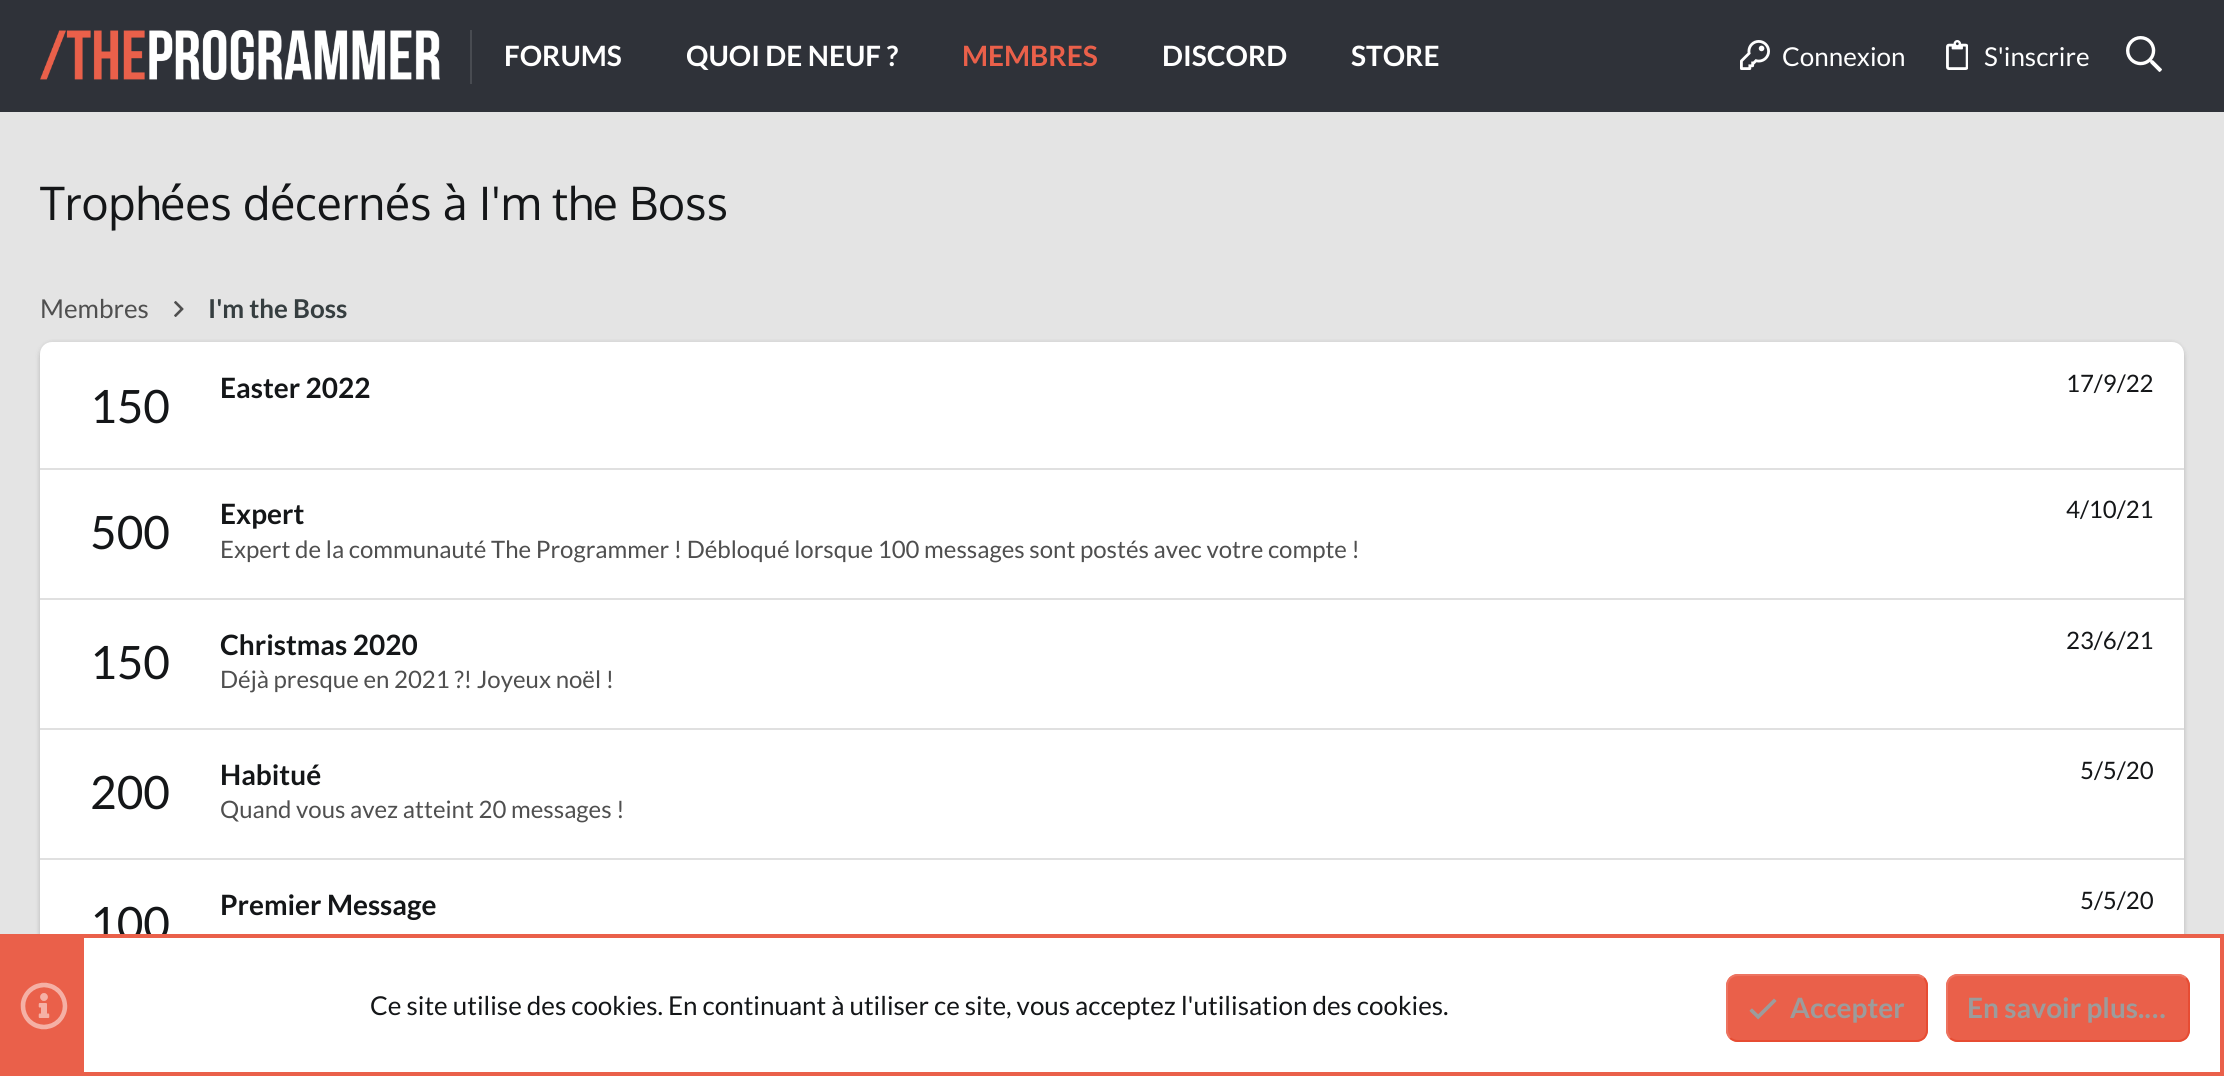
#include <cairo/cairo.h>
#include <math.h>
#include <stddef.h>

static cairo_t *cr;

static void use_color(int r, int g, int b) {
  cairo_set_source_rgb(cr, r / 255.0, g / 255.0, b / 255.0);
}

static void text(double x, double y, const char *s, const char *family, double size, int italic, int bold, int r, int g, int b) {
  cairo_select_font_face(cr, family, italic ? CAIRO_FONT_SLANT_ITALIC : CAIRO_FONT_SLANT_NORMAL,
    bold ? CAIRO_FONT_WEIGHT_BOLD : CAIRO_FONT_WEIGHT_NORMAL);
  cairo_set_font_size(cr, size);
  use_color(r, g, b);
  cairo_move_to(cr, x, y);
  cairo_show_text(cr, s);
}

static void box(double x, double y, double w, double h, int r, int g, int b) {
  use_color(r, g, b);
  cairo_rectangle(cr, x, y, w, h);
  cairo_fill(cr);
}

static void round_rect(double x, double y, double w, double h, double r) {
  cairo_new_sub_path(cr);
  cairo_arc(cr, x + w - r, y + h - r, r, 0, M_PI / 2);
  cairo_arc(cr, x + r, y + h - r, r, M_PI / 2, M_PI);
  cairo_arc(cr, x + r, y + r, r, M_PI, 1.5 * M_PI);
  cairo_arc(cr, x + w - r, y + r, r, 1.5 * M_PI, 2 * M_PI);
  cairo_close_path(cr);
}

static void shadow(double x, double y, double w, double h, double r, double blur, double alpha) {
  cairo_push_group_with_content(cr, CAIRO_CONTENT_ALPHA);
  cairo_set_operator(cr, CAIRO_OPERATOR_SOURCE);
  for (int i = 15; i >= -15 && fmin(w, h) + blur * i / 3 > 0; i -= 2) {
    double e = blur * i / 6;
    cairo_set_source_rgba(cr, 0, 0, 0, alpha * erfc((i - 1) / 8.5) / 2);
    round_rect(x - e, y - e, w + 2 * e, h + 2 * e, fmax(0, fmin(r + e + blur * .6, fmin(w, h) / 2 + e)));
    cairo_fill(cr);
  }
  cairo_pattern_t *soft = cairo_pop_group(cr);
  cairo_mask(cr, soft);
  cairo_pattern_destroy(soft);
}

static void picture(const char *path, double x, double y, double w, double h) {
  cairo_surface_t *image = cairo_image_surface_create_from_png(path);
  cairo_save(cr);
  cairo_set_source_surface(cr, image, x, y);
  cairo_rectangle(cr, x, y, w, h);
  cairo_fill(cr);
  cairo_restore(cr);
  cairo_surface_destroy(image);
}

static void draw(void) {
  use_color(228, 228, 228);
  cairo_paint(cr);
  box(0, 0, 2224, 112, 47, 50, 57);
  box(470, 30, 2, 54, 72, 75, 81);
  picture("img_01.png", 40, 30, 400, 50);
  picture("img_02.png", 1740, 40, 30, 30);
  picture("img_03.png", 1946, 40, 22, 30);
  picture("img_04.png", 2126, 36, 36, 36);
  picture("img_05.png", 174, 301, 10, 16);
  use_color(0, 0, 0);
  shadow(40, 344, 2144, 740, 12, 3, 0.1);
  shadow(40, 346, 2144, 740, 12, 2, 0.06);
  shadow(40, 342, 2144, 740, 12, 2, 0.07);
  use_color(255, 255, 255);
  round_rect(40, 342, 2144, 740, 12);
  cairo_fill(cr);
  box(40, 468, 2144, 2, 224, 224, 224);
  box(40, 598, 2144, 2, 224, 224, 224);
  box(40, 728, 2144, 2, 224, 224, 224);
  box(40, 858, 2144, 2, 224, 224, 224);
  text(504, 66, "FORUMS", "Lato", 28, 0, 1, 255, 255, 255);
  text(686, 66, "QUOI DE NEUF ?", "Lato", 28, 0, 1, 255, 255, 255);
  text(962, 66, "MEMBRES", "Lato", 28, 0, 1, 234, 96, 74);
  text(1162, 66, "DISCORD", "Lato", 28, 0, 1, 255, 255, 255);
  text(1351, 66, "STORE", "Lato", 28, 0, 1, 255, 255, 255);
  text(1782, 66, "Connexion", "Lato", 26, 0, 0, 255, 255, 255);
  text(1984, 66, "S'inscrire", "Lato", 26, 0, 0, 255, 255, 255);
  text(40, 220, "Trophées décernés à I'm the Boss", "Oxygen", 46, 0, 0, 20, 22, 24);
  text(40, 318, "Membres", "Lato", 26, 0, 0, 79, 79, 79);
  text(208, 318, "I'm the Boss", "Lato", 26, 0, 1, 54, 62, 64);
  text(220, 398, "Easter 2022", "Lato", 28, 0, 1, 20, 22, 24);
  text(2066, 392, "17/9/22", "Lato", 24, 0, 0, 20, 22, 24);
  text(90, 423, "150", "Lato", 46, 0, 0, 20, 22, 24);
  text(90, 549, "500", "Lato", 46, 0, 0, 20, 22, 24);
  text(220, 524, "Expert", "Lato", 28, 0, 1, 20, 22, 24);
  text(2066, 518, "4/10/21", "Lato", 24, 0, 0, 20, 22, 24);
  text(220, 558, "Expert de la communauté The Programmer ! Débloqué lorsque 100 messages sont postés avec votre compte !", "Lato", 24, 0, 0, 79, 79, 79);
  text(90, 679, "150", "Lato", 46, 0, 0, 20, 22, 24);
  text(220, 655, "Christmas 2020", "Lato", 28, 0, 1, 20, 22, 24);
  text(2066, 649, "23/6/21", "Lato", 24, 0, 0, 20, 22, 24);
  text(220, 688, "Déjà presque en 2021 ?! Joyeux noël !", "Lato", 24, 0, 0, 79, 79, 79);
  text(90, 809, "200", "Lato", 46, 0, 0, 20, 22, 24);
  text(220, 785, "Habitué", "Lato", 28, 0, 1, 20, 22, 24);
  text(2080, 779, "5/5/20", "Lato", 24, 0, 0, 20, 22, 24);
  text(220, 818, "Quand vous avez atteint 20 messages !", "Lato", 24, 0, 0, 79, 79, 79);
  text(90, 940, "100", "Lato", 46, 0, 0, 20, 22, 24);
  text(220, 915, "Premier Message", "Lato", 28, 0, 1, 20, 22, 24);
  text(2080, 909, "5/5/20", "Lato", 24, 0, 0, 20, 22, 24);
  box(96, 938, 2124, 134, 255, 255, 255);
  cairo_rectangle(cr, 2, 936, 2220, 138);
  use_color(234, 96, 74);
  cairo_set_line_width(cr, 4);
  cairo_stroke(cr);
  box(4, 938, 80, 134, 234, 96, 74);
  picture("img_06.png", 20, 982, 48, 48);
  text(370, 1015, "Ce site utilise des cookies. En continuant à utiliser ce site, vous acceptez l'utilisation des cookies.", "Lato", 26, 0, 0, 20, 22, 24);
  use_color(234, 96, 74);
  round_rect(1726, 974, 202, 68, 12);
  cairo_fill(cr);
  cairo_new_path(cr);
  cairo_move_to(cr, 1924, 978);
  cairo_curve_to(cr, 1926, 980.5, 1927, 983, 1927, 986);
  cairo_line_to(cr, 1927, 1030);
  cairo_curve_to(cr, 1927, 1033, 1926, 1035.5, 1924, 1038);
  cairo_curve_to(cr, 1921.5, 1040, 1919, 1041, 1916, 1041);
  cairo_line_to(cr, 1738, 1041);
  cairo_curve_to(cr, 1735, 1041, 1732.5, 1040, 1730, 1038);
  use_color(231, 76, 51);
  cairo_set_line_width(cr, 2);
  cairo_stroke(cr);
  cairo_new_path(cr);
  cairo_move_to(cr, 1730, 1038);
  cairo_curve_to(cr, 1728, 1035.5, 1727, 1033, 1727, 1030);
  cairo_line_to(cr, 1727, 986);
  cairo_curve_to(cr, 1727, 983, 1728, 980.5, 1730, 978);
  cairo_curve_to(cr, 1732.5, 976, 1735, 975, 1738, 975);
  cairo_line_to(cr, 1916, 975);
  cairo_curve_to(cr, 1919, 975, 1921.5, 976, 1924, 978);
  use_color(237, 116, 97);
  cairo_stroke(cr);
  picture("img_07.png", 1749, 998, 28, 22);
  text(1790, 1018, "Accepter", "Lato", 28, 0, 1, 156, 156, 156);
  use_color(234, 96, 74);
  round_rect(1946, 974, 244, 68, 12);
  cairo_fill(cr);
  cairo_new_path(cr);
  cairo_move_to(cr, 2186, 978);
  cairo_curve_to(cr, 2188, 980.5, 2189, 983, 2189, 986);
  cairo_line_to(cr, 2189, 1030);
  cairo_curve_to(cr, 2189, 1033, 2188, 1035.5, 2186, 1038);
  cairo_curve_to(cr, 2183.5, 1040, 2181, 1041, 2178, 1041);
  cairo_line_to(cr, 1958, 1041);
  cairo_curve_to(cr, 1955, 1041, 1952.5, 1040, 1950, 1038);
  use_color(231, 76, 51);
  cairo_stroke(cr);
  cairo_new_path(cr);
  cairo_move_to(cr, 1950, 1038);
  cairo_curve_to(cr, 1948, 1035.5, 1947, 1033, 1947, 1030);
  cairo_line_to(cr, 1947, 986);
  cairo_curve_to(cr, 1947, 983, 1948, 980.5, 1950, 978);
  cairo_curve_to(cr, 1952.5, 976, 1955, 975, 1958, 975);
  cairo_line_to(cr, 2178, 975);
  cairo_curve_to(cr, 2181, 975, 2183.5, 976, 2186, 978);
  use_color(237, 116, 97);
  cairo_stroke(cr);
  text(1967, 1018, "En savoir plus.…", "Lato", 28, 0, 1, 156, 156, 156);
}

int main(void) {
  cairo_surface_t *surface = cairo_image_surface_create(CAIRO_FORMAT_RGB24, 2224, 1076);
  cr = cairo_create(surface);
  cairo_font_options_t *options = cairo_font_options_create();
  cairo_font_options_set_hint_metrics(options, CAIRO_HINT_METRICS_OFF);
  cairo_font_options_set_hint_style(options, CAIRO_HINT_STYLE_NONE);
  cairo_set_font_options(cr, options);
  cairo_set_miter_limit(cr, 4);
  draw();
  cairo_surface_write_to_png(surface, "out.png");
  cairo_font_options_destroy(options);
  cairo_destroy(cr);
  cairo_surface_destroy(surface);
  return 0;
}
